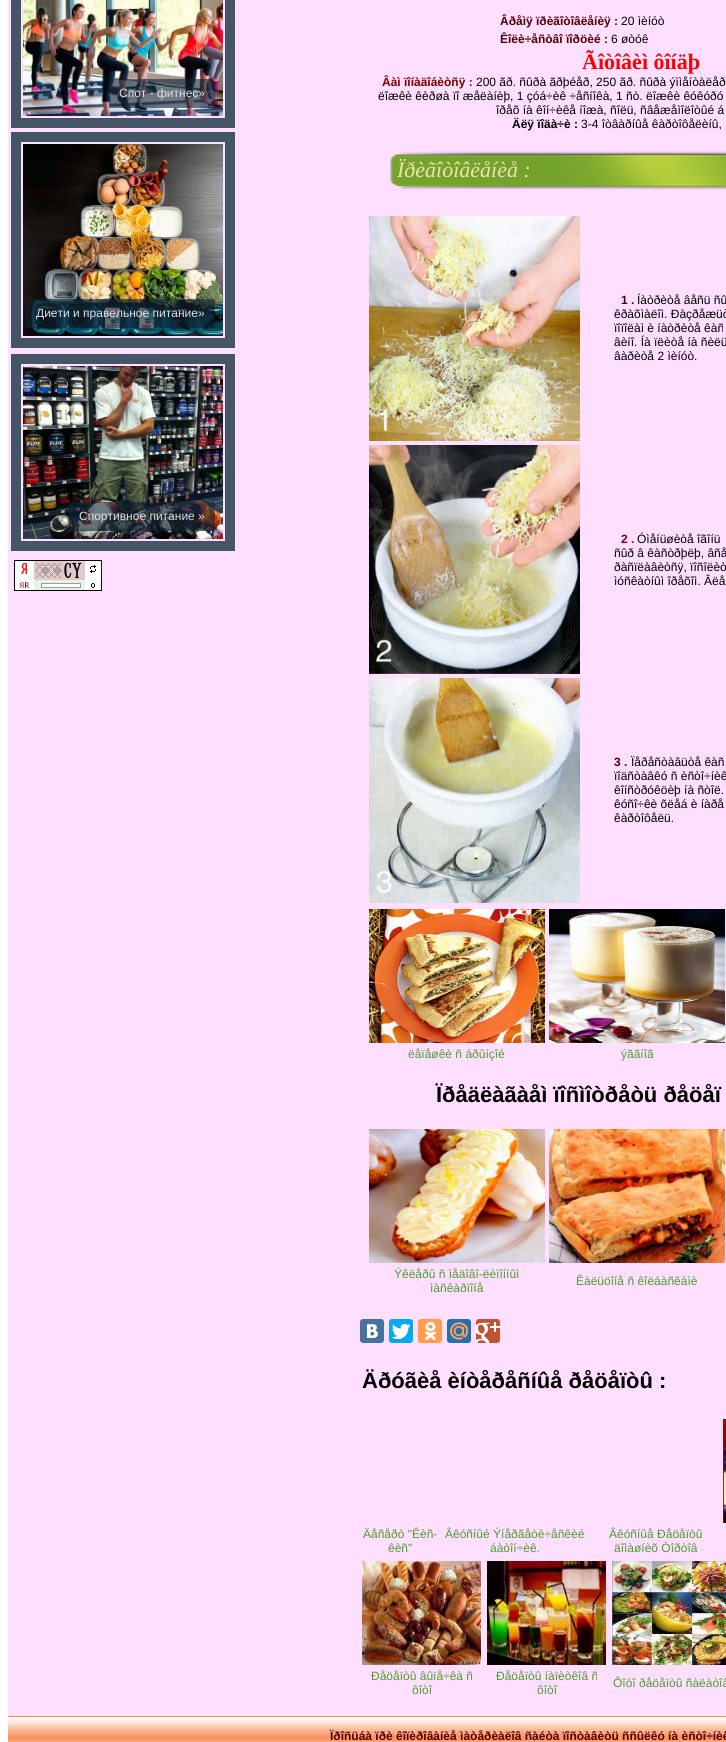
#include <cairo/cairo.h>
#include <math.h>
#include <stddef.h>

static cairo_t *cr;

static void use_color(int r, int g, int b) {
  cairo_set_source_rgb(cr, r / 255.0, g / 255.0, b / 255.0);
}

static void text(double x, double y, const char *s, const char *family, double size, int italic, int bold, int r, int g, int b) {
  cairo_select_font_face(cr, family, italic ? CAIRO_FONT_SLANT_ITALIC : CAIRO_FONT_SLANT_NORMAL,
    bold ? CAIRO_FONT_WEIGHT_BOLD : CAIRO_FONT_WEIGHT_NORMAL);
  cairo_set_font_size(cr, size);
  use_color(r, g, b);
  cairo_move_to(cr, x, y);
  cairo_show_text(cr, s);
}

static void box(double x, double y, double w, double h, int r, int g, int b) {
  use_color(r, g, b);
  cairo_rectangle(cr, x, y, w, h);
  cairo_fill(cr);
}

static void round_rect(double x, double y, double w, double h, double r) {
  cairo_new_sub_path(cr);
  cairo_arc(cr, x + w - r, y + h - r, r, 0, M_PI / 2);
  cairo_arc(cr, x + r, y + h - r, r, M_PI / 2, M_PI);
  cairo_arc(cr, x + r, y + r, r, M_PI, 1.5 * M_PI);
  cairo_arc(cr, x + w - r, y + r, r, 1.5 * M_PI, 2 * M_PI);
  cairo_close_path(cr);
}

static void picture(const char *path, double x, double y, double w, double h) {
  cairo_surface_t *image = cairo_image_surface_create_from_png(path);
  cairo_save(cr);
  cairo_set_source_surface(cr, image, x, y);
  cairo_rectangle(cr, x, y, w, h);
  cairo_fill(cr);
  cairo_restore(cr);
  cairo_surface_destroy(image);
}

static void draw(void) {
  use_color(255, 255, 255);
  cairo_paint(cr);
  box(8, 0, 718, 1716, 255, 223, 255);
  cairo_rectangle(cr, 16, -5, 214, 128);
  use_color(68, 85, 102);
  cairo_set_line_width(cr, 10);
  cairo_stroke(cr);
  picture("img_01.png", 23, 0, 200, 116);
  cairo_set_source_rgba(cr, 0.067, 0.133, 0.2, 0.6);
  cairo_rectangle(cr, 109, 79, 106, 29);
  cairo_fill(cr);
  cairo_rectangle(cr, 16, 137, 214, 206);
  use_color(68, 85, 102);
  cairo_stroke(cr);
  picture("img_02.png", 23, 144, 200, 192);
  cairo_set_source_rgba(cr, 0.067, 0.133, 0.2, 0.6);
  cairo_rectangle(cr, 26, 299, 189, 29);
  cairo_fill(cr);
  cairo_rectangle(cr, 16, 359, 214, 187);
  use_color(68, 85, 102);
  cairo_stroke(cr);
  picture("img_03.png", 23, 366, 200, 173);
  cairo_set_source_rgba(cr, 0.067, 0.133, 0.2, 0.6);
  cairo_rectangle(cr, 69, 502, 146, 29);
  cairo_fill(cr);
  picture("img_04.png", 14, 560, 88, 31);
  picture("img_05.png", 390, 151, 336, 40);
  picture("img_06.png", 369, 216, 211, 225);
  picture("img_07.png", 369, 445, 211, 229);
  picture("img_08.png", 369, 678, 211, 225);
  picture("img_09.png", 369, 909, 176, 134);
  picture("img_10.png", 549, 909, 176, 134);
  picture("img_11.png", 369, 1129, 176, 134);
  picture("img_12.png", 549, 1129, 176, 134);
  use_color(72, 114, 158);
  round_rect(360, 1319, 24, 24, 3);
  cairo_fill(cr);
  picture("img_13.png", 367, 1324, 11, 14);
  use_color(0, 172, 237);
  round_rect(389, 1319, 24, 24, 3);
  cairo_fill(cr);
  picture("img_14.png", 392, 1324, 18, 15);
  use_color(255, 159, 77);
  round_rect(418, 1319, 24, 24, 3);
  cairo_fill(cr);
  picture("img_15.png", 425, 1322, 11, 18);
  use_color(34, 110, 183);
  round_rect(447, 1319, 24, 24, 3);
  cairo_fill(cr);
  picture("img_16.png", 450, 1322, 18, 18);
  use_color(194, 82, 52);
  round_rect(476, 1319, 24, 24, 3);
  cairo_fill(cr);
  picture("img_17.png", 476, 1322, 24, 21);
  picture("img_18.png", 723, 1419, 3, 104);
  picture("img_19.png", 362, 1561, 119, 104);
  picture("img_20.png", 487, 1561, 119, 104);
  picture("img_21.png", 612, 1561, 114, 104);
  picture("img_22.png", 8, 1716, 718, 26);
  text(119, 97, "Спот - фитнес»", "Liberation Sans", 12, 0, 0, 223, 223, 223);
  text(36, 317, "Диети и правельное питание»", "Liberation Sans", 12, 0, 0, 223, 223, 223);
  text(79, 520, "Спортивное питание »", "Liberation Sans", 12, 0, 0, 223, 223, 223);
  text(500, 25, "Âðåìÿ ïðèãîòîâëåíèÿ :", "Liberation Sans", 12, 0, 1, 85, 0, 0);
  text(621, 25, "20 ìèíóò", "Liberation Sans", 12, 0, 0, 0, 0, 0);
  text(500, 43, "Êîëè÷åñòâî ïîðöèé :", "Liberation Sans", 12, 0, 1, 85, 0, 0);
  text(611, 43, "6 øòóê", "Liberation Sans", 12, 0, 0, 0, 0, 0);
  text(582, 69, "Ãîòîâèì ôîíäþ", "Liberation Serif", 22, 0, 1, 255, 0, 0);
  text(382, 86, "Âàì ïîíàäîáèòñÿ :", "Liberation Sans", 12, 0, 1, 128, 0, 0);
  text(476, 86, "200 ãð. ñûðà ãðþéåð, 250 ãð. ñûðà ýììåíòàëåð", "Liberation Sans", 12, 0, 0, 0, 0, 0);
  text(378, 100, "ëîæêè êèðøà ïî æåëàíèþ, 1 çóá÷èê ÷åñíîêà, 1 ñò. ëîæêè êóêóðó", "Liberation Sans", 12, 0, 0, 0, 0, 0);
  text(496, 114, "îðåõ íà êîí÷èêå íîæà, ñîëü, ñâåæåìîëîòûé á", "Liberation Sans", 12, 0, 0, 0, 0, 0);
  text(512, 128, "Äëÿ ïîäà÷è :", "Liberation Sans", 12, 0, 1, 0, 0, 0);
  text(581, 128, "3-4 îòâàðíûå êàðòîôåëèíû,", "Liberation Sans", 12, 0, 0, 0, 0, 0);
  text(397, 177, "Ïðèãîòîâëåíèå :", "Liberation Serif", 22, 1, 0, 240, 224, 176);
  text(621, 304, "1 .", "Liberation Sans", 12, 0, 1, 85, 0, 0);
  text(637, 304, "Íàòðèòå âåñü ñû", "Liberation Sans", 12, 0, 0, 0, 0, 0);
  text(614, 318, "êðàõìàëîì. Ðàçðåæüò", "Liberation Sans", 12, 0, 0, 0, 0, 0);
  text(614, 332, "ïîïîëàì è íàòðèòå êàñ", "Liberation Sans", 12, 0, 0, 0, 0, 0);
  text(614, 346, "âèíî. Íà ïëèòå íà ñèëü", "Liberation Sans", 12, 0, 0, 0, 0, 0);
  text(614, 360, "âàðèòå 2 ìèíóò.", "Liberation Sans", 12, 0, 0, 0, 0, 0);
  text(621, 543, "2 .", "Liberation Sans", 12, 0, 1, 128, 0, 0);
  text(637, 543, "Óìåíüøèòå îãîíü", "Liberation Sans", 12, 0, 0, 0, 0, 0);
  text(614, 557, "ñûð â êàñòðþëþ, âñå", "Liberation Sans", 12, 0, 0, 0, 0, 0);
  text(614, 571, "ðàñïëàâèòñÿ, ïîñîëèò", "Liberation Sans", 12, 0, 0, 0, 0, 0);
  text(614, 585, "ìóñêàòíûì îðåõîì. Âëå", "Liberation Sans", 12, 0, 0, 0, 0, 0);
  text(614, 766, "3 .", "Liberation Sans", 12, 0, 1, 85, 0, 0);
  text(631, 766, "Ïåðåñòàâüòå êàñ", "Liberation Sans", 12, 0, 0, 0, 0, 0);
  text(614, 780, "ïîäñòàâêó ñ èñòî÷íèê", "Liberation Sans", 12, 0, 0, 0, 0, 0);
  text(614, 794, "êîíñòðóêöèþ íà ñòîë.", "Liberation Sans", 12, 0, 0, 0, 0, 0);
  text(614, 808, "êóñî÷êè õëåá è íàðå", "Liberation Sans", 12, 0, 0, 0, 0, 0);
  text(614, 822, "êàðòîôåëü.", "Liberation Sans", 12, 0, 0, 0, 0, 0);
  text(408, 1058, "ëåïåøêè ñ áðûíçîé", "Liberation Sans", 12, 0, 0, 76, 158, 46);
  text(621, 1058, "ýããíîã", "Liberation Sans", 12, 0, 0, 76, 158, 46);
  text(436, 1102, "Ïðåäëàãàåì ïîñìîòðåòü ðåöåï", "Liberation Sans", 22, 0, 1, 0, 0, 0);
  text(394, 1278, "Ýêëåðû ñ ìåäîâî-ëèìîííûì", "Liberation Sans", 12, 0, 0, 76, 158, 46);
  text(430, 1292, "ìàñêàðïîíå", "Liberation Sans", 12, 0, 0, 76, 158, 46);
  text(576, 1285, "Êàëüöîíå ñ êîëáàñêàìè", "Liberation Sans", 12, 0, 0, 76, 158, 46);
  text(362, 1388, "Äðóãèå èíòåðåñíûå ðåöåïòû :", "Liberation Sans", 22, 0, 1, 0, 0, 0);
  text(363, 1538, "Äåñåðò \"Êèñ-", "Liberation Sans", 12, 0, 0, 76, 158, 46);
  text(388, 1552, "êèñ\"", "Liberation Sans", 12, 0, 0, 76, 158, 46);
  text(445, 1538, "Âêóñíûé Ýíåðãåòè÷åñêèé", "Liberation Sans", 12, 0, 0, 76, 158, 46);
  text(490, 1552, "áàòîí÷èê.", "Liberation Sans", 12, 0, 0, 76, 158, 46);
  text(609, 1538, "Âêóñíûå Ðåöåïòû", "Liberation Sans", 12, 0, 0, 76, 158, 46);
  text(614, 1552, "äîìàøíèõ Òîðòîâ", "Liberation Sans", 12, 0, 0, 76, 158, 46);
  text(371, 1680, "Ðåöåïòû âûïå÷êà ñ", "Liberation Sans", 12, 0, 0, 76, 158, 46);
  text(412, 1694, "ôîòî", "Liberation Sans", 12, 0, 0, 76, 158, 46);
  text(496, 1680, "Ðåöåïòû íàïèòêîâ ñ", "Liberation Sans", 12, 0, 0, 76, 158, 46);
  text(537, 1694, "ôîòî", "Liberation Sans", 12, 0, 0, 76, 158, 46);
  text(613, 1687, "Ôîòî ðåöåïòû ñàëàòîâ", "Liberation Sans", 12, 0, 0, 76, 158, 46);
  text(330, 1740, "Ïðîñüáà ïðè êîïèðîâàíèå ìàòåðèàëîâ ñàéòà ïîñòàâèòü ññûëêó íà èñòî÷íèê", "Liberation Sans", 12, 0, 1, 85, 0, 0);
}

int main(void) {
  cairo_surface_t *surface = cairo_image_surface_create(CAIRO_FORMAT_RGB24, 726, 1742);
  cr = cairo_create(surface);
  cairo_font_options_t *options = cairo_font_options_create();
  cairo_font_options_set_hint_metrics(options, CAIRO_HINT_METRICS_OFF);
  cairo_font_options_set_hint_style(options, CAIRO_HINT_STYLE_NONE);
  cairo_set_font_options(cr, options);
  cairo_set_miter_limit(cr, 4);
  draw();
  cairo_surface_write_to_png(surface, "out.png");
  cairo_font_options_destroy(options);
  cairo_destroy(cr);
  cairo_surface_destroy(surface);
  return 0;
}
